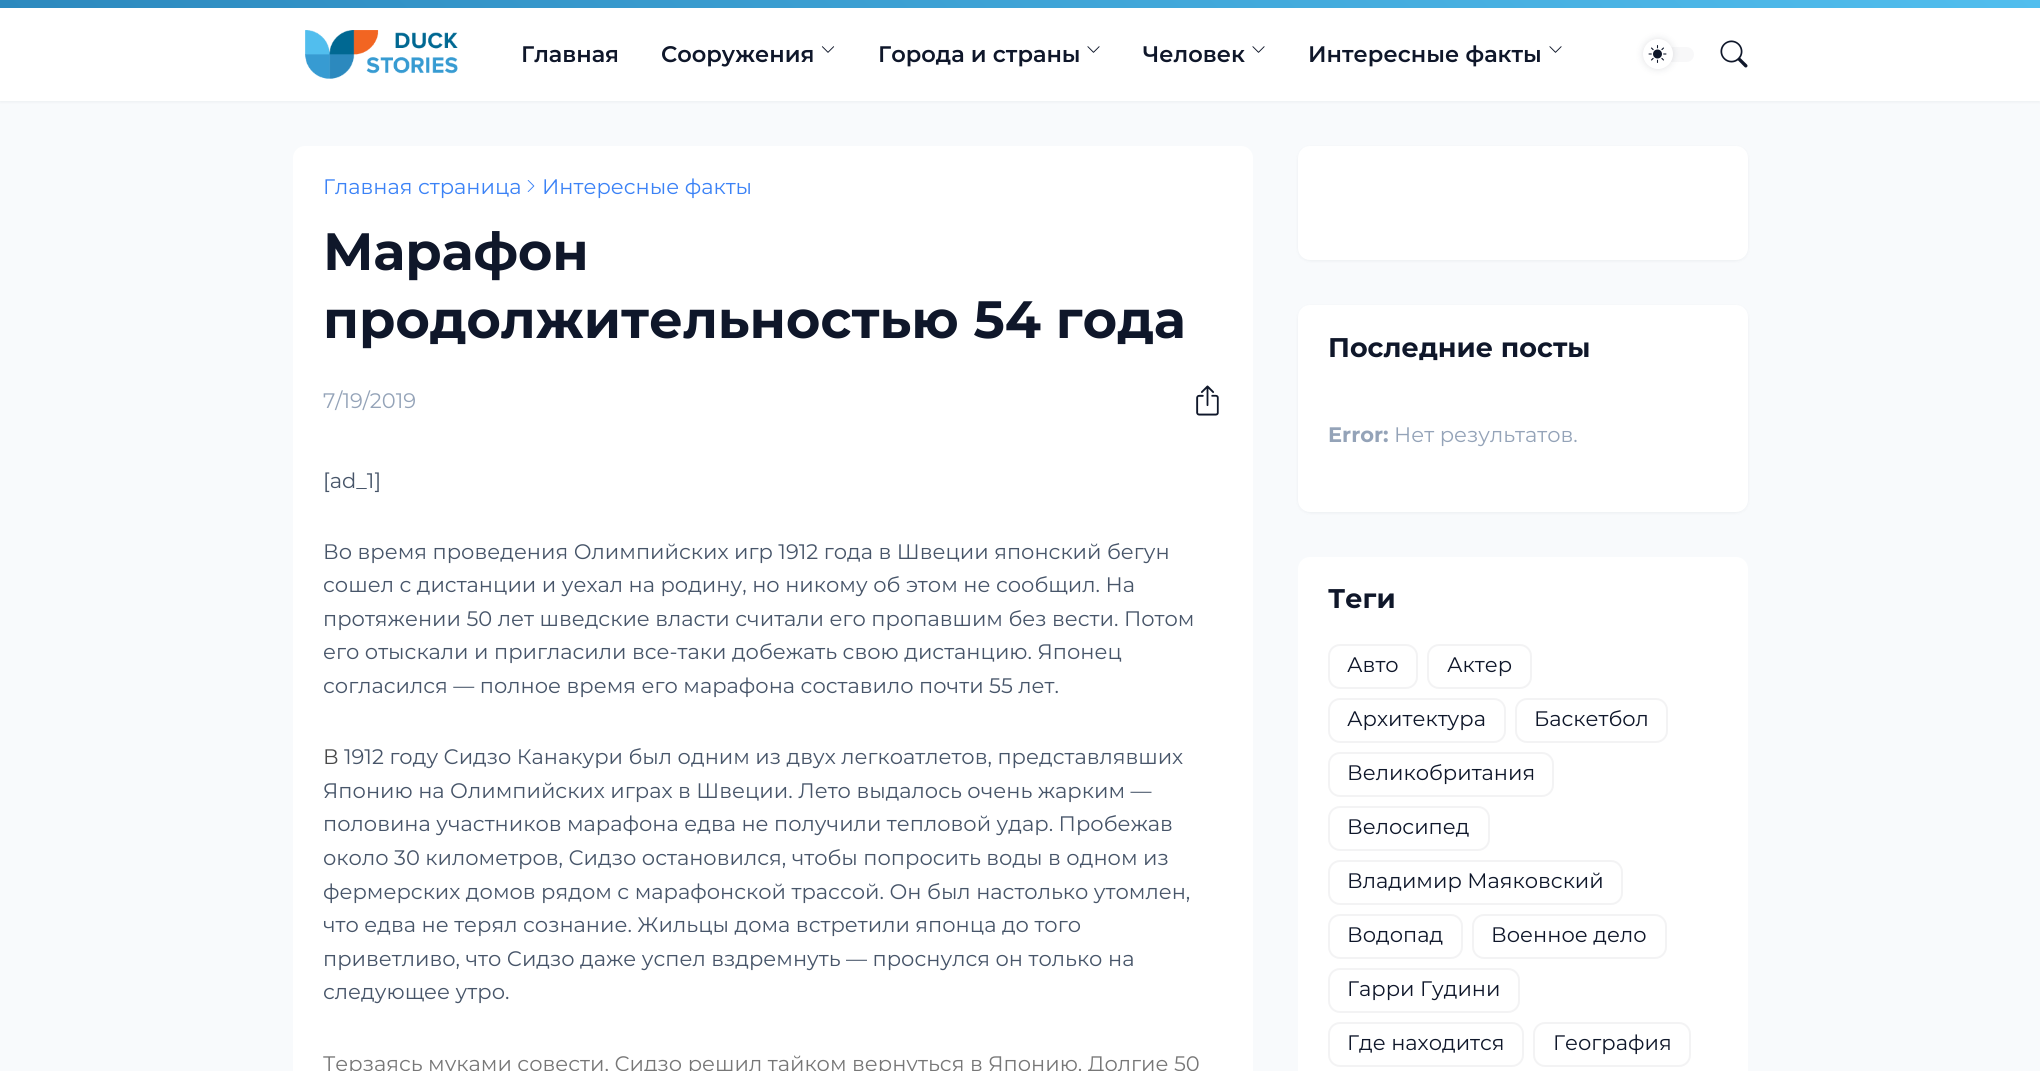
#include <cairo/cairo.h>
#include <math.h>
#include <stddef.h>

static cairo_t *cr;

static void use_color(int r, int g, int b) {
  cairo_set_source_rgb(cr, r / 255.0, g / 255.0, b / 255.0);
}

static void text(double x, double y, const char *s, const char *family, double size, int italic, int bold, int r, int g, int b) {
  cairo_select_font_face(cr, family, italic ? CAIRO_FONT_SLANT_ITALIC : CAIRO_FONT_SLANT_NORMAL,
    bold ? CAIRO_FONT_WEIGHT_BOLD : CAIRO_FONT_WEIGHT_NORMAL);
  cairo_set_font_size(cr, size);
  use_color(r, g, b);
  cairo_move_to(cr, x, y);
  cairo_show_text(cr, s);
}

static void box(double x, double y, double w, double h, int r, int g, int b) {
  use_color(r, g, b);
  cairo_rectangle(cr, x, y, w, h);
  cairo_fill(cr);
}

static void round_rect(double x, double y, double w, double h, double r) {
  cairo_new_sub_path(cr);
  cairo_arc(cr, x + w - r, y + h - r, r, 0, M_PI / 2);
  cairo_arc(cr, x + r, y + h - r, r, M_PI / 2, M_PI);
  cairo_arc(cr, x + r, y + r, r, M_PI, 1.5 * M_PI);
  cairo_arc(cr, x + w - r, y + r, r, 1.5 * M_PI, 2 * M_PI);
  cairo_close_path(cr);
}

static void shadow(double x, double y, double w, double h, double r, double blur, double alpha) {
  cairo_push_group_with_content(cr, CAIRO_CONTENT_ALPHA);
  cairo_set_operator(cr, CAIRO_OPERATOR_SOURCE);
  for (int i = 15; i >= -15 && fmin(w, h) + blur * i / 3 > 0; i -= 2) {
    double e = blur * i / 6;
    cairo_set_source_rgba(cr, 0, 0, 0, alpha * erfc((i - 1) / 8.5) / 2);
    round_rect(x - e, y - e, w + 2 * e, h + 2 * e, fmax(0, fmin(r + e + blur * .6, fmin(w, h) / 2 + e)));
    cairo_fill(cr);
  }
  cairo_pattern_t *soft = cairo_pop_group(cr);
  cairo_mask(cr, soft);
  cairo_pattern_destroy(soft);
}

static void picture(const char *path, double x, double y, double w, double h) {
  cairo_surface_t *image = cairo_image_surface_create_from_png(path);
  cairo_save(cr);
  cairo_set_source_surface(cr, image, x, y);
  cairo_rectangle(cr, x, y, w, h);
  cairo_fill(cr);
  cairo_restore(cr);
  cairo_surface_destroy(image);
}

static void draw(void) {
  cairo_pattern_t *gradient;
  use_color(248, 250, 252);
  cairo_paint(cr);
  use_color(15, 23, 42);
  shadow(0, 2, 2040, 100, 0, 1.5, 0.05);
  gradient = cairo_pattern_create_linear(508, 516, 1532, -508);
  cairo_pattern_add_color_stop_rgba(gradient, 0, 0.173, 0.537, 0.745, 1);
  cairo_pattern_add_color_stop_rgba(gradient, 1, 0.318, 0.745, 0.933, 1);
  cairo_set_source(cr, gradient);
  cairo_pattern_destroy(gradient);
  cairo_rectangle(cr, 0, 0, 2040, 8);
  cairo_fill(cr);
  box(0, 8, 2040, 93, 255, 255, 255);
  picture("img_01.png", 305, 30, 153, 49);
  picture("img_02.png", 821, 46, 14, 7);
  picture("img_03.png", 1087, 46, 13, 7);
  picture("img_03.png", 1252, 46, 13, 7);
  picture("img_03.png", 1549, 46, 13, 7);
  use_color(248, 248, 249);
  round_rect(1643, 47, 51, 15, 7.5);
  cairo_fill(cr);
  use_color(15, 23, 42);
  shadow(1643, 39, 30, 30, 15, 4, 0.12);
  use_color(255, 255, 255);
  cairo_arc(cr, 1658, 54, 15, 0, 2 * M_PI);
  cairo_fill(cr);
  picture("img_04.png", 1648, 45, 19, 18);
  picture("img_05.png", 1720, 40, 28, 28);
  round_rect(293, 146, 960, 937, 12);
  cairo_fill(cr);
  picture("img_06.png", 527, 180, 8, 12);
  picture("img_07.png", 1196, 385, 23, 31);
  use_color(15, 23, 42);
  shadow(1298, 147, 450, 114, 12, 1.5, 0.05);
  use_color(255, 255, 255);
  round_rect(1298, 146, 450, 114, 12);
  cairo_fill(cr);
  use_color(15, 23, 42);
  shadow(1298, 306, 450, 207, 12, 1.5, 0.05);
  use_color(255, 255, 255);
  round_rect(1298, 305, 450, 207, 12);
  cairo_fill(cr);
  round_rect(1298, 557, 450, 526, 12);
  cairo_fill(cr);
  round_rect(1329, 645, 88, 43, 11);
  use_color(243, 243, 244);
  cairo_stroke(cr);
  round_rect(1428, 645, 103, 43, 11);
  cairo_stroke(cr);
  round_rect(1329, 699, 176, 43, 11);
  cairo_stroke(cr);
  round_rect(1516, 699, 151, 43, 11);
  cairo_stroke(cr);
  round_rect(1329, 753, 224, 43, 11);
  cairo_stroke(cr);
  round_rect(1329, 807, 160, 43, 11);
  cairo_stroke(cr);
  round_rect(1329, 861, 293, 43, 11);
  cairo_stroke(cr);
  round_rect(1329, 915, 133, 43, 11);
  cairo_stroke(cr);
  round_rect(1473, 915, 193, 43, 11);
  cairo_stroke(cr);
  round_rect(1329, 969, 190, 43, 11);
  cairo_stroke(cr);
  round_rect(1329, 1023, 194, 43, 11);
  cairo_stroke(cr);
  round_rect(1534, 1023, 156, 43, 11);
  cairo_stroke(cr);
  text(521, 62, "Главная", "Montserrat SemiBold", 22.5, 0, 0, 15, 23, 42);
  text(661, 62, "Сооружения", "Montserrat SemiBold", 22.5, 0, 0, 15, 23, 42);
  text(878, 62, "Города и страны", "Montserrat SemiBold", 22.5, 0, 0, 15, 23, 42);
  text(1143, 62, "Человек", "Montserrat SemiBold", 22.5, 0, 0, 15, 23, 42);
  text(1308, 62, "Интересные факты", "Montserrat SemiBold", 22.5, 0, 0, 15, 23, 42);
  text(323, 194, "Главная страница", "Montserrat", 21, 0, 0, 59, 130, 246);
  text(542, 194, "Интересные факты", "Montserrat", 21, 0, 0, 59, 130, 246);
  text(323, 270, "Марафон", "Montserrat", 52.5, 0, 1, 15, 23, 42);
  text(323, 338, "продолжительностью 54 года", "Montserrat", 52.5, 0, 1, 15, 23, 42);
  text(323, 408, "7/19/2019", "Montserrat", 21, 0, 0, 148, 163, 184);
  text(323, 488, "[ad_1]", "Montserrat", 21, 0, 0, 71, 85, 105);
  text(323, 559, "Во время проведения Олимпийских игр 1912 года в Швеции японский бегун", "Montserrat", 21, 0, 0, 71, 85, 105);
  text(323, 592, "сошел с дистанции и уехал на родину, но никому об этом не сообщил. На", "Montserrat", 21, 0, 0, 71, 85, 105);
  text(323, 626, "протяжении 50 лет шведские власти считали его пропавшим без вести. Потом", "Montserrat", 21, 0, 0, 71, 85, 105);
  text(323, 659, "его отыскали и пригласили все-таки добежать свою дистанцию. Японец", "Montserrat", 21, 0, 0, 71, 85, 105);
  text(323, 693, "согласился — полное время его марафона составило почти 55 лет.", "Montserrat", 21, 0, 0, 71, 85, 105);
  text(323, 764, "В", "Montserrat", 21, 0, 0, 73, 73, 73);
  text(344, 764, "1912 году Сидзо Канакури был одним из двух легкоатлетов, представлявших", "Montserrat", 21, 0, 0, 71, 85, 105);
  text(323, 798, "Японию на Олимпийских играх в Швеции. Лето выдалось очень жарким —", "Montserrat", 21, 0, 0, 71, 85, 105);
  text(323, 831, "половина участников марафона едва не получили тепловой удар. Пробежав", "Montserrat", 21, 0, 0, 71, 85, 105);
  text(323, 865, "около 30 километров, Сидзо остановился, чтобы попросить воды в одном из", "Montserrat", 21, 0, 0, 71, 85, 105);
  text(323, 899, "фермерских домов рядом с марафонской трассой. Он был настолько утомлен,", "Montserrat", 21, 0, 0, 71, 85, 105);
  text(323, 932, "что едва не терял сознание. Жильцы дома встретили японца до того", "Montserrat", 21, 0, 0, 71, 85, 105);
  text(323, 966, "приветливо, что Сидзо даже успел вздремнуть — проснулся он только на", "Montserrat", 21, 0, 0, 71, 85, 105);
  text(323, 999, "следующее утро.", "Montserrat", 21, 0, 0, 71, 85, 105);
  text(323, 1071, "Терзаясь муками совести, Сидзо решил тайком вернуться в Японию. Долгие 50", "Montserrat", 21, 0, 0, 119, 119, 119);
  text(1328, 357, "Последние посты", "Montserrat", 27, 0, 1, 15, 23, 42);
  text(1328, 442, "Error:", "Montserrat", 21, 0, 1, 148, 163, 184);
  text(1394, 442, "Нет результатов.", "Montserrat", 21, 0, 0, 148, 163, 184);
  text(1328, 608, "Теги", "Montserrat", 27, 0, 1, 15, 23, 42);
  text(1347, 672, "Авто", "Montserrat", 21, 0, 0, 15, 23, 42);
  text(1447, 672, "Актер", "Montserrat", 21, 0, 0, 15, 23, 42);
  text(1347, 726, "Архитектура", "Montserrat", 21, 0, 0, 15, 23, 42);
  text(1534, 726, "Баскетбол", "Montserrat", 21, 0, 0, 15, 23, 42);
  text(1347, 780, "Великобритания", "Montserrat", 21, 0, 0, 15, 23, 42);
  text(1347, 834, "Велосипед", "Montserrat", 21, 0, 0, 15, 23, 42);
  text(1347, 888, "Владимир Маяковский", "Montserrat", 21, 0, 0, 15, 23, 42);
  text(1347, 942, "Водопад", "Montserrat", 21, 0, 0, 15, 23, 42);
  text(1491, 942, "Военное дело", "Montserrat", 21, 0, 0, 15, 23, 42);
  text(1347, 996, "Гарри Гудини", "Montserrat", 21, 0, 0, 15, 23, 42);
  text(1347, 1050, "Где находится", "Montserrat", 21, 0, 0, 15, 23, 42);
  text(1553, 1050, "География", "Montserrat", 21, 0, 0, 15, 23, 42);
}

int main(void) {
  cairo_surface_t *surface = cairo_image_surface_create(CAIRO_FORMAT_RGB24, 2040, 1071);
  cr = cairo_create(surface);
  cairo_font_options_t *options = cairo_font_options_create();
  cairo_font_options_set_hint_metrics(options, CAIRO_HINT_METRICS_OFF);
  cairo_font_options_set_hint_style(options, CAIRO_HINT_STYLE_NONE);
  cairo_set_font_options(cr, options);
  cairo_set_miter_limit(cr, 4);
  draw();
  cairo_surface_write_to_png(surface, "out.png");
  cairo_font_options_destroy(options);
  cairo_destroy(cr);
  cairo_surface_destroy(surface);
  return 0;
}
